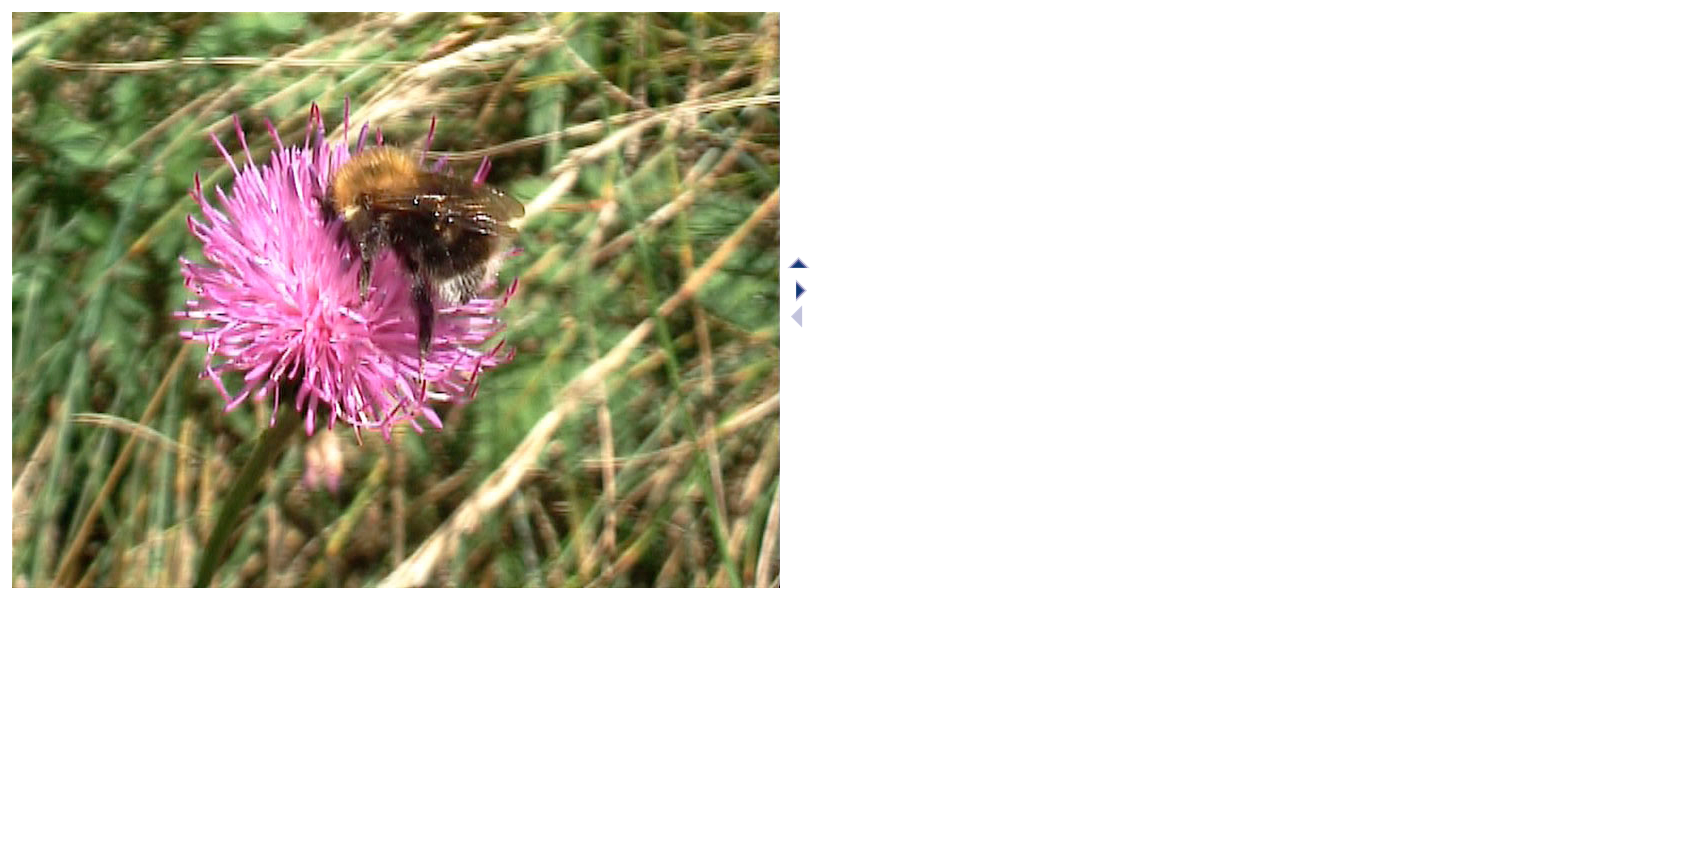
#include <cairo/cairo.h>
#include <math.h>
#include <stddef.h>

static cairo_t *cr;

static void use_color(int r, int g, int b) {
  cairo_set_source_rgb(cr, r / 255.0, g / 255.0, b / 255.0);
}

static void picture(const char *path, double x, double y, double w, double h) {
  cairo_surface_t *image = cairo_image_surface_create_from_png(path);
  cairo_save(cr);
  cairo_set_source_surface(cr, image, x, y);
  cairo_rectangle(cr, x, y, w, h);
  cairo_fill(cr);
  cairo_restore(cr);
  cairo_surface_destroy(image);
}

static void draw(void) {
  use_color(255, 255, 255);
  cairo_paint(cr);
  picture("img_01.png", 12, 12, 768, 576);
  picture("img_02.png", 787, 257, 23, 12);
  picture("img_03.png", 795, 279, 12, 23);
  picture("img_04.png", 791, 305, 12, 23);
}

int main(void) {
  cairo_surface_t *surface = cairo_image_surface_create(CAIRO_FORMAT_RGB24, 1691, 847);
  cr = cairo_create(surface);
  cairo_font_options_t *options = cairo_font_options_create();
  cairo_font_options_set_hint_metrics(options, CAIRO_HINT_METRICS_OFF);
  cairo_font_options_set_hint_style(options, CAIRO_HINT_STYLE_NONE);
  cairo_set_font_options(cr, options);
  cairo_set_miter_limit(cr, 4);
  draw();
  cairo_surface_write_to_png(surface, "out.png");
  cairo_font_options_destroy(options);
  cairo_destroy(cr);
  cairo_surface_destroy(surface);
  return 0;
}
